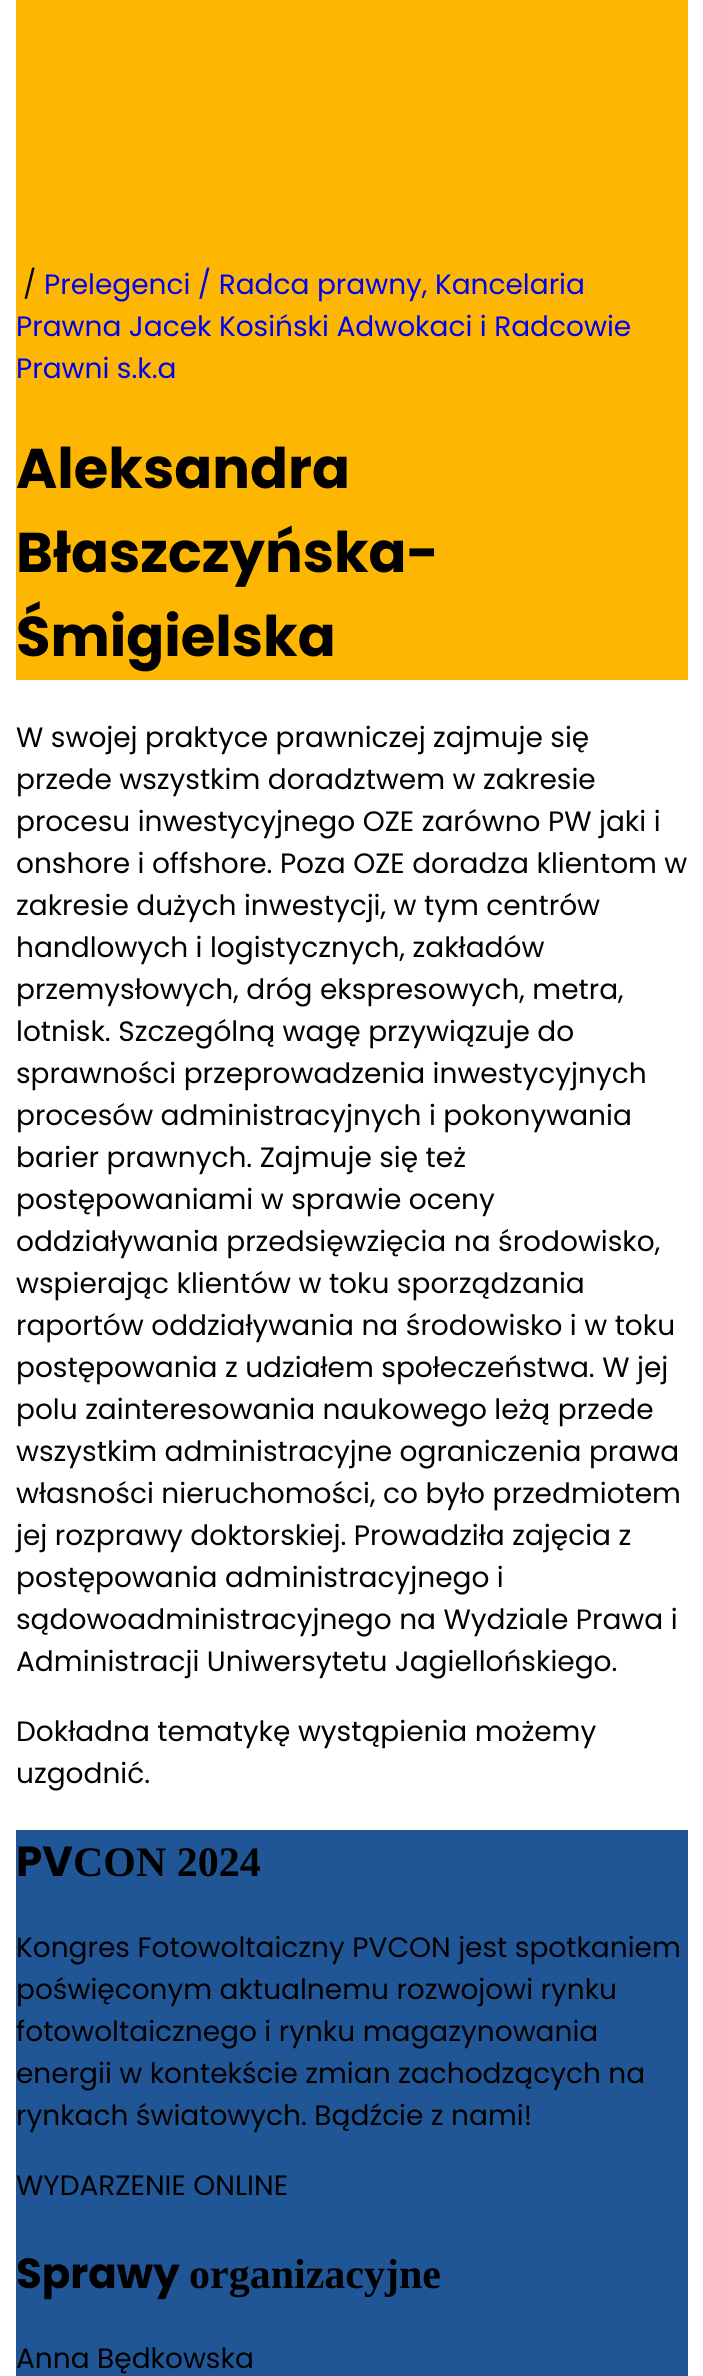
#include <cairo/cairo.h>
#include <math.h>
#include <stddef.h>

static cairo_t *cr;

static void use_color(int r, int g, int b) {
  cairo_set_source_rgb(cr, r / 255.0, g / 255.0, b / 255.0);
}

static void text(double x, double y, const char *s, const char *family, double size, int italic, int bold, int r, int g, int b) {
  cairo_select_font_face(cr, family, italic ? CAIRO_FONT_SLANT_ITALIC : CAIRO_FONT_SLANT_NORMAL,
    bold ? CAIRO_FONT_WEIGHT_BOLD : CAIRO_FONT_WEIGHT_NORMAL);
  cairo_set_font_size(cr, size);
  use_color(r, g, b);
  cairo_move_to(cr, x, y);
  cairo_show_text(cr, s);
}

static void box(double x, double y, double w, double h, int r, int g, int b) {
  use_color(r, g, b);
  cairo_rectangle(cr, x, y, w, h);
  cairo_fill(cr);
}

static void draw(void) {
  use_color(255, 255, 255);
  cairo_paint(cr);
  box(16, 0, 672, 680, 253, 183, 2);
  box(16, 1830, 672, 546, 32, 86, 149);
  text(23, 294, "/", "Poppins", 28, 0, 0, 0, 0, 0);
  text(44, 294, "Prelegenci / Radca prawny, Kancelaria", "Poppins", 28, 0, 0, 0, 0, 238);
  text(16, 336, "Prawna Jacek Kosiński Adwokaci i Radcowie", "Poppins", 28, 0, 0, 0, 0, 238);
  text(16, 378, "Prawni s.k.a", "Poppins", 28, 0, 0, 0, 0, 238);
  text(16, 488, "Aleksandra", "Poppins", 56, 0, 1, 0, 0, 0);
  text(16, 572, "Błaszczyńska-", "Poppins", 56, 0, 1, 0, 0, 0);
  text(16, 656, "Śmigielska", "Poppins", 56, 0, 1, 0, 0, 0);
  text(16, 747, "W swojej praktyce prawniczej zajmuje się", "Poppins", 28, 0, 0, 0, 0, 0);
  text(16, 789, "przede wszystkim doradztwem w zakresie", "Poppins", 28, 0, 0, 0, 0, 0);
  text(16, 831, "procesu inwestycyjnego OZE zarówno PW jaki i", "Poppins", 28, 0, 0, 0, 0, 0);
  text(16, 873, "onshore i offshore. Poza OZE doradza klientom w", "Poppins", 28, 0, 0, 0, 0, 0);
  text(16, 915, "zakresie dużych inwestycji, w tym centrów", "Poppins", 28, 0, 0, 0, 0, 0);
  text(16, 957, "handlowych i logistycznych, zakładów", "Poppins", 28, 0, 0, 0, 0, 0);
  text(16, 999, "przemysłowych, dróg ekspresowych, metra,", "Poppins", 28, 0, 0, 0, 0, 0);
  text(16, 1041, "lotnisk. Szczególną wagę przywiązuje do", "Poppins", 28, 0, 0, 0, 0, 0);
  text(16, 1083, "sprawności przeprowadzenia inwestycyjnych", "Poppins", 28, 0, 0, 0, 0, 0);
  text(16, 1125, "procesów administracyjnych i pokonywania", "Poppins", 28, 0, 0, 0, 0, 0);
  text(16, 1167, "barier prawnych. Zajmuje się też", "Poppins", 28, 0, 0, 0, 0, 0);
  text(16, 1209, "postępowaniami w sprawie oceny", "Poppins", 28, 0, 0, 0, 0, 0);
  text(16, 1251, "oddziaływania przedsięwzięcia na środowisko,", "Poppins", 28, 0, 0, 0, 0, 0);
  text(16, 1293, "wspierając klientów w toku sporządzania", "Poppins", 28, 0, 0, 0, 0, 0);
  text(16, 1335, "raportów oddziaływania na środowisko i w toku", "Poppins", 28, 0, 0, 0, 0, 0);
  text(16, 1377, "postępowania z udziałem społeczeństwa. W jej", "Poppins", 28, 0, 0, 0, 0, 0);
  text(16, 1419, "polu zainteresowania naukowego leżą przede", "Poppins", 28, 0, 0, 0, 0, 0);
  text(16, 1461, "wszystkim administracyjne ograniczenia prawa", "Poppins", 28, 0, 0, 0, 0, 0);
  text(16, 1503, "własności nieruchomości, co było przedmiotem", "Poppins", 28, 0, 0, 0, 0, 0);
  text(16, 1545, "jej rozprawy doktorskiej. Prowadziła zajęcia z", "Poppins", 28, 0, 0, 0, 0, 0);
  text(16, 1587, "postępowania administracyjnego i", "Poppins", 28, 0, 0, 0, 0, 0);
  text(16, 1629, "sądowoadministracyjnego na Wydziale Prawa i", "Poppins", 28, 0, 0, 0, 0, 0);
  text(16, 1671, "Administracji Uniwersytetu Jagiellońskiego.", "Poppins", 28, 0, 0, 0, 0, 0);
  text(16, 1741, "Dokładna tematykę wystąpienia możemy", "Poppins", 28, 0, 0, 0, 0, 0);
  text(16, 1783, "uzgodnić.", "Poppins", 28, 0, 0, 0, 0, 0);
  text(16, 1876, "PV", "Poppins", 42, 0, 1, 0, 0, 0);
  text(73, 1876, "CON 2024", "Liberation Serif", 42, 0, 1, 0, 0, 0);
  text(16, 1957, "Kongres Fotowoltaiczny PVCON jest spotkaniem", "Poppins", 28, 0, 0, 0, 0, 0);
  text(16, 1999, "poświęconym aktualnemu rozwojowi rynku", "Poppins", 28, 0, 0, 0, 0, 0);
  text(16, 2041, "fotowoltaicznego i rynku magazynowania", "Poppins", 28, 0, 0, 0, 0, 0);
  text(16, 2083, "energii w kontekście zmian zachodzących na", "Poppins", 28, 0, 0, 0, 0, 0);
  text(16, 2125, "rynkach światowych. Bądźcie z nami!", "Poppins", 28, 0, 0, 0, 0, 0);
  text(16, 2195, "WYDARZENIE ONLINE", "Poppins", 28, 0, 0, 0, 0, 0);
  text(16, 2288, "Sprawy", "Poppins", 42, 0, 1, 0, 0, 0);
  text(189, 2288, "organizacyjne", "Liberation Serif", 42, 0, 1, 0, 0, 0);
  text(16, 2368, "Anna Będkowska", "Poppins", 28, 0, 0, 0, 0, 0);
}

int main(void) {
  cairo_surface_t *surface = cairo_image_surface_create(CAIRO_FORMAT_RGB24, 703, 2376);
  cr = cairo_create(surface);
  cairo_font_options_t *options = cairo_font_options_create();
  cairo_font_options_set_hint_metrics(options, CAIRO_HINT_METRICS_OFF);
  cairo_font_options_set_hint_style(options, CAIRO_HINT_STYLE_NONE);
  cairo_set_font_options(cr, options);
  cairo_set_miter_limit(cr, 4);
  draw();
  cairo_surface_write_to_png(surface, "out.png");
  cairo_font_options_destroy(options);
  cairo_destroy(cr);
  cairo_surface_destroy(surface);
  return 0;
}
